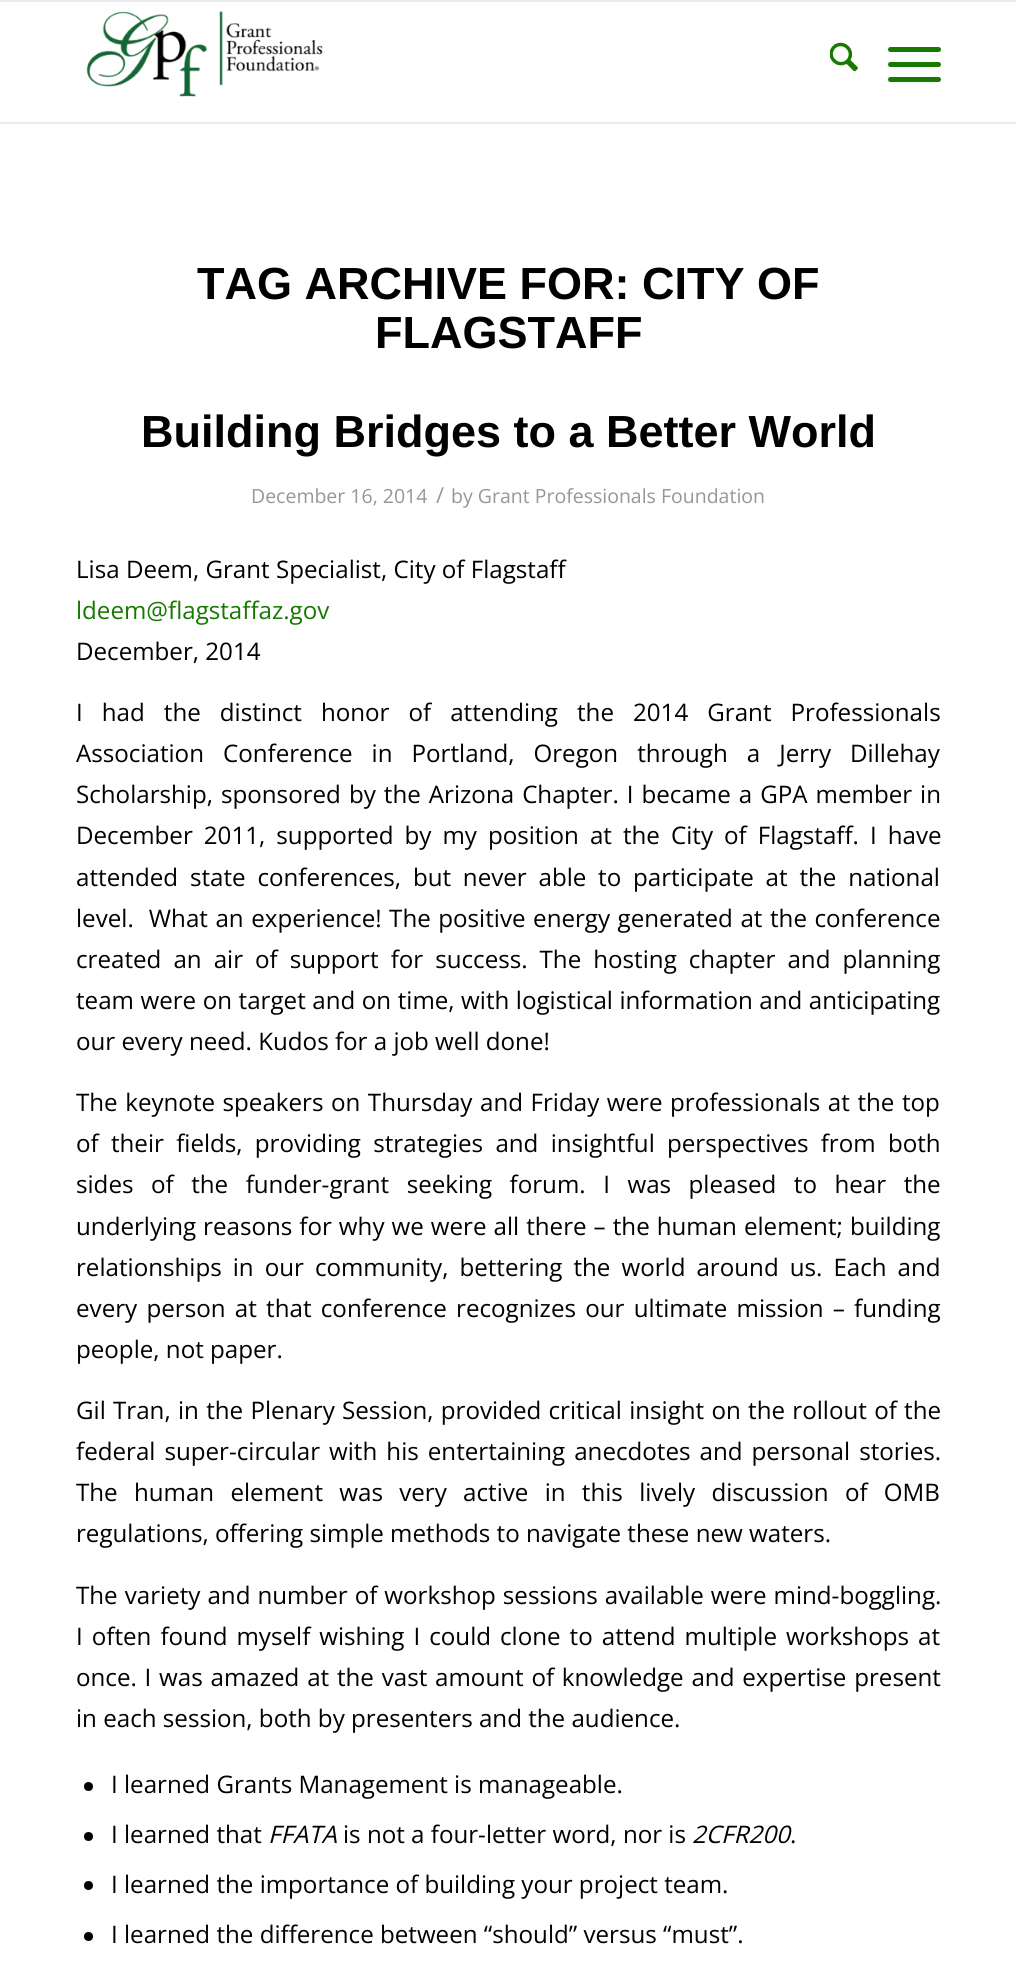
#include <cairo/cairo.h>
#include <math.h>
#include <stddef.h>

static cairo_t *cr;

static void use_color(int r, int g, int b) {
  cairo_set_source_rgb(cr, r / 255.0, g / 255.0, b / 255.0);
}

static void text(double x, double y, const char *s, const char *family, double size, int italic, int bold, int r, int g, int b) {
  cairo_select_font_face(cr, family, italic ? CAIRO_FONT_SLANT_ITALIC : CAIRO_FONT_SLANT_NORMAL,
    bold ? CAIRO_FONT_WEIGHT_BOLD : CAIRO_FONT_WEIGHT_NORMAL);
  cairo_set_font_size(cr, size);
  use_color(r, g, b);
  cairo_move_to(cr, x, y);
  cairo_show_text(cr, s);
}

static void spaced_text(double x, double y, const char *s, double letter, double word) {
  cairo_move_to(cr, x, y);
  while (*s) {
    char ch[5] = {0};
    int n = 0;
    do ch[n++] = *s++; while ((*s & 0xC0) == 0x80);
    cairo_show_text(cr, ch);
    cairo_rel_move_to(cr, letter + word * (*ch == ' '), 0);
  }
}

static void box(double x, double y, double w, double h, int r, int g, int b) {
  use_color(r, g, b);
  cairo_rectangle(cr, x, y, w, h);
  cairo_fill(cr);
}

static void round_rect(double x, double y, double w, double h, double r) {
  cairo_new_sub_path(cr);
  cairo_arc(cr, x + w - r, y + h - r, r, 0, M_PI / 2);
  cairo_arc(cr, x + r, y + h - r, r, M_PI / 2, M_PI);
  cairo_arc(cr, x + r, y + r, r, M_PI, 1.5 * M_PI);
  cairo_arc(cr, x + w - r, y + r, r, 1.5 * M_PI, 2 * M_PI);
  cairo_close_path(cr);
}

static void picture(const char *path, double x, double y, double w, double h) {
  cairo_surface_t *image = cairo_image_surface_create_from_png(path);
  cairo_save(cr);
  cairo_set_source_surface(cr, image, x, y);
  cairo_rectangle(cr, x, y, w, h);
  cairo_fill(cr);
  cairo_restore(cr);
  cairo_surface_destroy(image);
}

static void draw(void) {
  use_color(255, 255, 255);
  cairo_paint(cr);
  box(0, 0, 1016, 2, 235, 235, 235);
  box(0, 122, 1016, 2, 235, 235, 235);
  picture("img_01.png", 86, 11, 237, 86);
  picture("img_02.png", 830, 42, 28, 30);
  use_color(22, 121, 0);
  round_rect(888, 62, 53, 5, 2.5);
  cairo_fill(cr);
  round_rect(888, 47, 53, 5, 2.5);
  cairo_fill(cr);
  round_rect(888, 77, 53, 5, 2.5);
  cairo_fill(cr);
  use_color(0, 0, 0);
  cairo_arc(cr, 88.5, 1786.5, 4.5, 0, 2 * M_PI);
  cairo_fill(cr);
  cairo_arc(cr, 88.5, 1836.5, 4.5, 0, 2 * M_PI);
  cairo_fill(cr);
  cairo_arc(cr, 88.5, 1885.5, 4.5, 0, 2 * M_PI);
  cairo_fill(cr);
  cairo_arc(cr, 88.5, 1936.5, 4.5, 0, 2 * M_PI);
  cairo_fill(cr);
  text(197, 299, "TAG ARCHIVE FOR: CITY OF", "Liberation Sans", 45, 0, 1, 0, 0, 0);
  text(375, 348, "FLAGSTAFF", "Liberation Sans", 45, 0, 1, 0, 0, 0);
  text(141, 447, "Building Bridges to a Better World", "Liberation Sans", 45, 0, 1, 0, 0, 0);
  text(251, 503, "December 16, 2014", "Open Sans", 19.5, 0, 0, 150, 150, 150);
  text(436, 503, "/", "Open Sans", 22, 0, 0, 150, 150, 150);
  text(451, 503, "by Grant Professionals Foundation", "Open Sans", 19.5, 0, 0, 150, 150, 150);
  text(76, 578, "Lisa Deem, Grant Specialist, City of Flagstaff", "Open Sans", 24.15, 0, 0, 0, 0, 0);
  text(76, 619, "ldeem@flagstaffaz.gov", "Open Sans", 24.15, 0, 0, 22, 121, 0);
  text(76, 660, "December, 2014", "Open Sans", 24.15, 0, 0, 0, 0, 0);
  spaced_text(76, 721, "I had the distinct honor of attending the 2014 Grant Professionals", 0, 12.75);
  spaced_text(76, 762, "Association Conference in Portland, Oregon through a Jerry Dillehay", 0, 12.75);
  spaced_text(76, 803, "Scholarship, sponsored by the Arizona Chapter. I became a GPA member in", 0, 1.75);
  spaced_text(76, 844, "December 2011, supported by my position at the City of Flagstaff. I have", 0, 4.75);
  spaced_text(76, 886, "attended state conferences, but never able to participate at the national", 0, 5.5);
  spaced_text(76, 927, "level.  What an experience! The positive energy generated at the conference", 0, 1.25);
  spaced_text(76, 968, "created an air of support for success. The hosting chapter and planning", 0, 5.75);
  spaced_text(76, 1009, "team were on target and on time, with logistical information and anticipating", 0, 0.25);
  text(76, 1050, "our every need. Kudos for a job well done!", "Open Sans", 24.15, 0, 0, 0, 0, 0);
  spaced_text(76, 1111, "The keynote speakers on Thursday and Friday were professionals at the top", 0, 1.25);
  spaced_text(76, 1152, "of their fields, providing strategies and insightful perspectives from both", 0, 6);
  spaced_text(76, 1193, "sides of the funder-grant seeking forum. I was pleased to hear the", 0, 11.25);
  spaced_text(76, 1235, "underlying reasons for why we were all there – the human element; building", 0, 0.75);
  spaced_text(76, 1276, "relationships in our community, bettering the world around us. Each and", 0, 4.75);
  spaced_text(76, 1317, "every person at that conference recognizes our ultimate mission – funding", 0, 3);
  text(76, 1358, "people, not paper.", "Open Sans", 24.15, 0, 0, 0, 0, 0);
  spaced_text(76, 1419, "Gil Tran, in the Plenary Session, provided critical insight on the rollout of the", 0, 1);
  spaced_text(76, 1460, "federal super-circular with his entertaining anecdotes and personal stories.", 0, 2.75);
  spaced_text(76, 1501, "The human element was very active in this lively discussion of OMB", 0, 10);
  text(76, 1542, "regulations, offering simple methods to navigate these new waters.", "Open Sans", 24.15, 0, 0, 0, 0, 0);
  spaced_text(76, 1604, "The variety and number of workshop sessions available were mind-boggling.", 0, 0.75);
  spaced_text(76, 1645, "I often found myself wishing I could clone to attend multiple workshops at", 0, 2.75);
  spaced_text(76, 1686, "once. I was amazed at the vast amount of knowledge and expertise present", 0, 1.5);
  text(76, 1727, "in each session, both by presenters and the audience.", "Open Sans", 24.15, 0, 0, 0, 0, 0);
  text(111, 1793, "I learned Grants Management is manageable.", "Open Sans", 24.15, 0, 0, 0, 0, 0);
  text(111, 1843, "I learned that", "Open Sans", 24.15, 0, 0, 0, 0, 0);
  text(268, 1843, "FFATA", "Open Sans", 24.15, 1, 0, 0, 0, 0);
  text(343, 1843, "is not a four-letter word, nor is", "Open Sans", 24.15, 0, 0, 0, 0, 0);
  text(692, 1843, "2CFR200", "Open Sans", 24.15, 1, 0, 0, 0, 0);
  text(790, 1843, ".", "Open Sans", 24.15, 0, 0, 0, 0, 0);
  text(111, 1893, "I learned the importance of building your project team.", "Open Sans", 24.15, 0, 0, 0, 0, 0);
  text(111, 1943, "I learned the difference between “should” versus “must”.", "Open Sans", 24.15, 0, 0, 0, 0, 0);
}

int main(void) {
  cairo_surface_t *surface = cairo_image_surface_create(CAIRO_FORMAT_RGB24, 1016, 1981);
  cr = cairo_create(surface);
  cairo_font_options_t *options = cairo_font_options_create();
  cairo_font_options_set_hint_metrics(options, CAIRO_HINT_METRICS_OFF);
  cairo_font_options_set_hint_style(options, CAIRO_HINT_STYLE_NONE);
  cairo_set_font_options(cr, options);
  cairo_set_miter_limit(cr, 4);
  draw();
  cairo_surface_write_to_png(surface, "out.png");
  cairo_font_options_destroy(options);
  cairo_destroy(cr);
  cairo_surface_destroy(surface);
  return 0;
}
